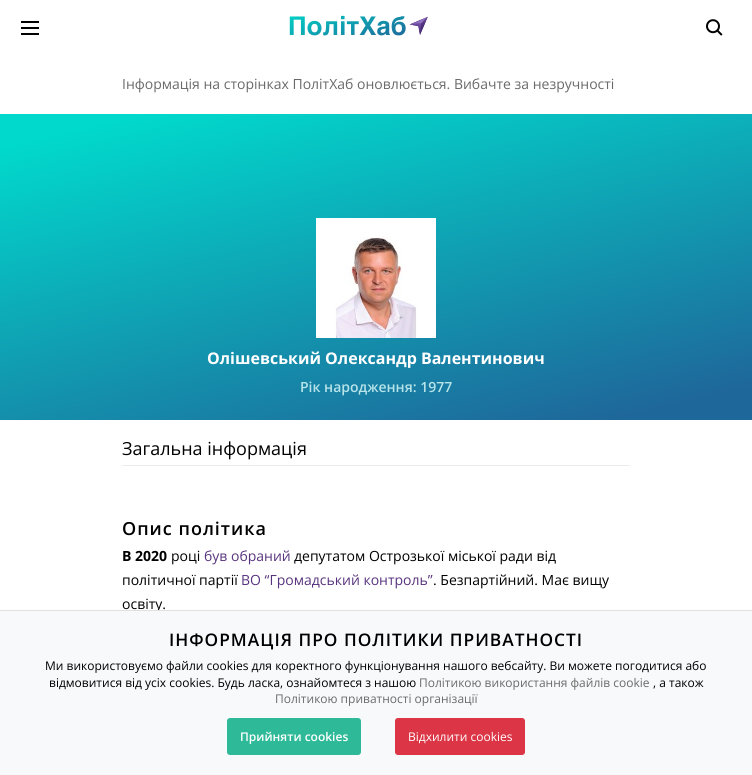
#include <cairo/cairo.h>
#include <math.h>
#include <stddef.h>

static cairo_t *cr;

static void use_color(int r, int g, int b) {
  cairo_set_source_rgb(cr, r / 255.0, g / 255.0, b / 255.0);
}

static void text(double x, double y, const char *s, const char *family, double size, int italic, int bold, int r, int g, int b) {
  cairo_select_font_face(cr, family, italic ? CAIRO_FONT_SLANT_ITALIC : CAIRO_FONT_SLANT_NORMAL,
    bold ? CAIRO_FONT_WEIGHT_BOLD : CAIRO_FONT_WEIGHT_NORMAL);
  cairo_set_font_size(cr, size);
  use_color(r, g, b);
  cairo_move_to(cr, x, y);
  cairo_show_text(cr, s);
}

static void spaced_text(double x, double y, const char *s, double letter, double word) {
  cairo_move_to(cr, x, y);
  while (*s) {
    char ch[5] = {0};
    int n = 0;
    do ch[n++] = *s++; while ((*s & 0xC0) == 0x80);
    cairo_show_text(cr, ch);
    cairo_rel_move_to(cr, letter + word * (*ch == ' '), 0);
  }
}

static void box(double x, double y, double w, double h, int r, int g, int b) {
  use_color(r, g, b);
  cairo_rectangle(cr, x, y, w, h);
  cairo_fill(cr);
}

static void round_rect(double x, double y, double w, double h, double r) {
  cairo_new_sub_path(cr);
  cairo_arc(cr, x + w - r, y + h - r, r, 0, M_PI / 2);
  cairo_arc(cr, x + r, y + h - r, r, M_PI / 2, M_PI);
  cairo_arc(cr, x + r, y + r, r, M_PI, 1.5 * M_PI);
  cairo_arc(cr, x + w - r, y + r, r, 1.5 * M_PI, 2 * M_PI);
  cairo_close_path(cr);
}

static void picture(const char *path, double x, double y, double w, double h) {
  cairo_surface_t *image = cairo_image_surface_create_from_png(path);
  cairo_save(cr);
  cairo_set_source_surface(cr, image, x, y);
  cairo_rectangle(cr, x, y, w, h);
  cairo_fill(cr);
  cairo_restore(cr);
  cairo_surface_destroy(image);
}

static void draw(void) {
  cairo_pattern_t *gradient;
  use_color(255, 255, 255);
  cairo_paint(cr);
  box(21, 21, 18, 2, 0, 0, 0);
  box(21, 27, 18, 2, 0, 0, 0);
  box(21, 33, 18, 2, 0, 0, 0);
  picture("img_01.png", 289, 15, 139, 21);
  picture("img_02.png", 706, 19, 17, 17);
  gradient = cairo_pattern_create_linear(321, 37, 431, 497);
  cairo_pattern_add_color_stop_rgba(gradient, 0.07, 0.004, 0.851, 0.8, 1);
  cairo_pattern_add_color_stop_rgba(gradient, 0.93, 0.118, 0.404, 0.604, 1);
  cairo_set_source(cr, gradient);
  cairo_pattern_destroy(gradient);
  cairo_rectangle(cr, 0, 114, 752, 306);
  cairo_fill(cr);
  box(316, 218, 120, 120, 255, 255, 255);
  picture("img_03.png", 335, 237, 82, 101);
  box(122, 465, 508, 1, 236, 236, 236);
  text(122, 89, "Інформація на сторінках ПолітХаб оновлюється. Вибачте за незручності", "Open Sans", 14, 0, 0, 106, 106, 106);
  text(207, 364, "Олішевський Олександр Валентинович", "Open Sans", 16, 0, 1, 255, 255, 255);
  text(300, 392, "Рік народження: 1977", "Open Sans SemiBold", 14, 0, 0, 183, 228, 233);
  text(122, 455, "Загальна інформація", "Open Sans", 18, 0, 0, 0, 0, 0);
  cairo_select_font_face(cr, "Open Sans SemiBold", CAIRO_FONT_SLANT_NORMAL, CAIRO_FONT_WEIGHT_NORMAL);
  spaced_text(122, 535, "Опис політика", 1, 0);
  text(122, 561, "В 2020", "Open Sans", 14, 0, 1, 0, 0, 0);
  text(171, 561, "році", "Open Sans", 14, 0, 0, 0, 0, 0);
  text(204, 561, "був обраний", "Open Sans", 14, 0, 0, 88, 52, 126);
  text(294, 561, "депутатом Острозької міської ради від", "Open Sans", 14, 0, 0, 0, 0, 0);
  text(122, 585, "політичної партії", "Open Sans", 14, 0, 0, 0, 0, 0);
  text(241, 585, "ВО “Громадський контроль”", "Open Sans", 14, 0, 0, 88, 52, 126);
  text(433, 585, ". Безпартійний. Має вищу", "Open Sans", 14, 0, 0, 0, 0, 0);
  text(122, 609, "освіту.", "Open Sans", 14, 0, 0, 0, 0, 0);
  box(0, 611, 752, 164, 248, 249, 250);
  box(0, 610, 752, 1, 227, 224, 224);
  cairo_select_font_face(cr, "Open Sans SemiBold", CAIRO_FONT_SLANT_NORMAL, CAIRO_FONT_WEIGHT_NORMAL);
  cairo_set_font_size(cr, 17.3);
  use_color(0, 0, 0);
  spaced_text(169, 646, "ІНФОРМАЦІЯ ПРО ПОЛІТИКИ ПРИВАТНОСТІ", 1, 0);
  text(45, 670, "Ми використовуємо файли cookies для коректного функціонування нашого вебсайту. Ви можете погодитися або", "Open Sans", 12, 0, 0, 0, 0, 0);
  text(49, 687, "відмовитися від усіх cookies. Будь ласка, ознайомтеся з нашою", "Open Sans", 12, 0, 0, 0, 0, 0);
  text(419, 687, "Політикою використання файлів cookie", "Open Sans", 12, 0, 0, 106, 106, 106);
  text(653, 687, ", а також", "Open Sans", 12, 0, 0, 0, 0, 0);
  text(275, 703, "Політикою приватності організації", "Open Sans", 12, 0, 0, 106, 106, 106);
  use_color(46, 185, 152);
  round_rect(227, 718, 134, 37, 3);
  cairo_fill(cr);
  text(240, 741, "Прийняти cookies", "Open Sans SemiBold", 12, 0, 0, 255, 255, 255);
  use_color(220, 53, 69);
  round_rect(395.5, 718.5, 129, 36, 2.5);
  cairo_fill_preserve(cr);
  cairo_set_line_width(cr, 1);
  cairo_stroke(cr);
  text(408, 741, "Відхилити cookies", "Open Sans", 12, 0, 0, 255, 255, 255);
}

int main(void) {
  cairo_surface_t *surface = cairo_image_surface_create(CAIRO_FORMAT_RGB24, 752, 775);
  cr = cairo_create(surface);
  cairo_font_options_t *options = cairo_font_options_create();
  cairo_font_options_set_hint_metrics(options, CAIRO_HINT_METRICS_OFF);
  cairo_font_options_set_hint_style(options, CAIRO_HINT_STYLE_NONE);
  cairo_set_font_options(cr, options);
  cairo_set_miter_limit(cr, 4);
  draw();
  cairo_surface_write_to_png(surface, "out.png");
  cairo_font_options_destroy(options);
  cairo_destroy(cr);
  cairo_surface_destroy(surface);
  return 0;
}
